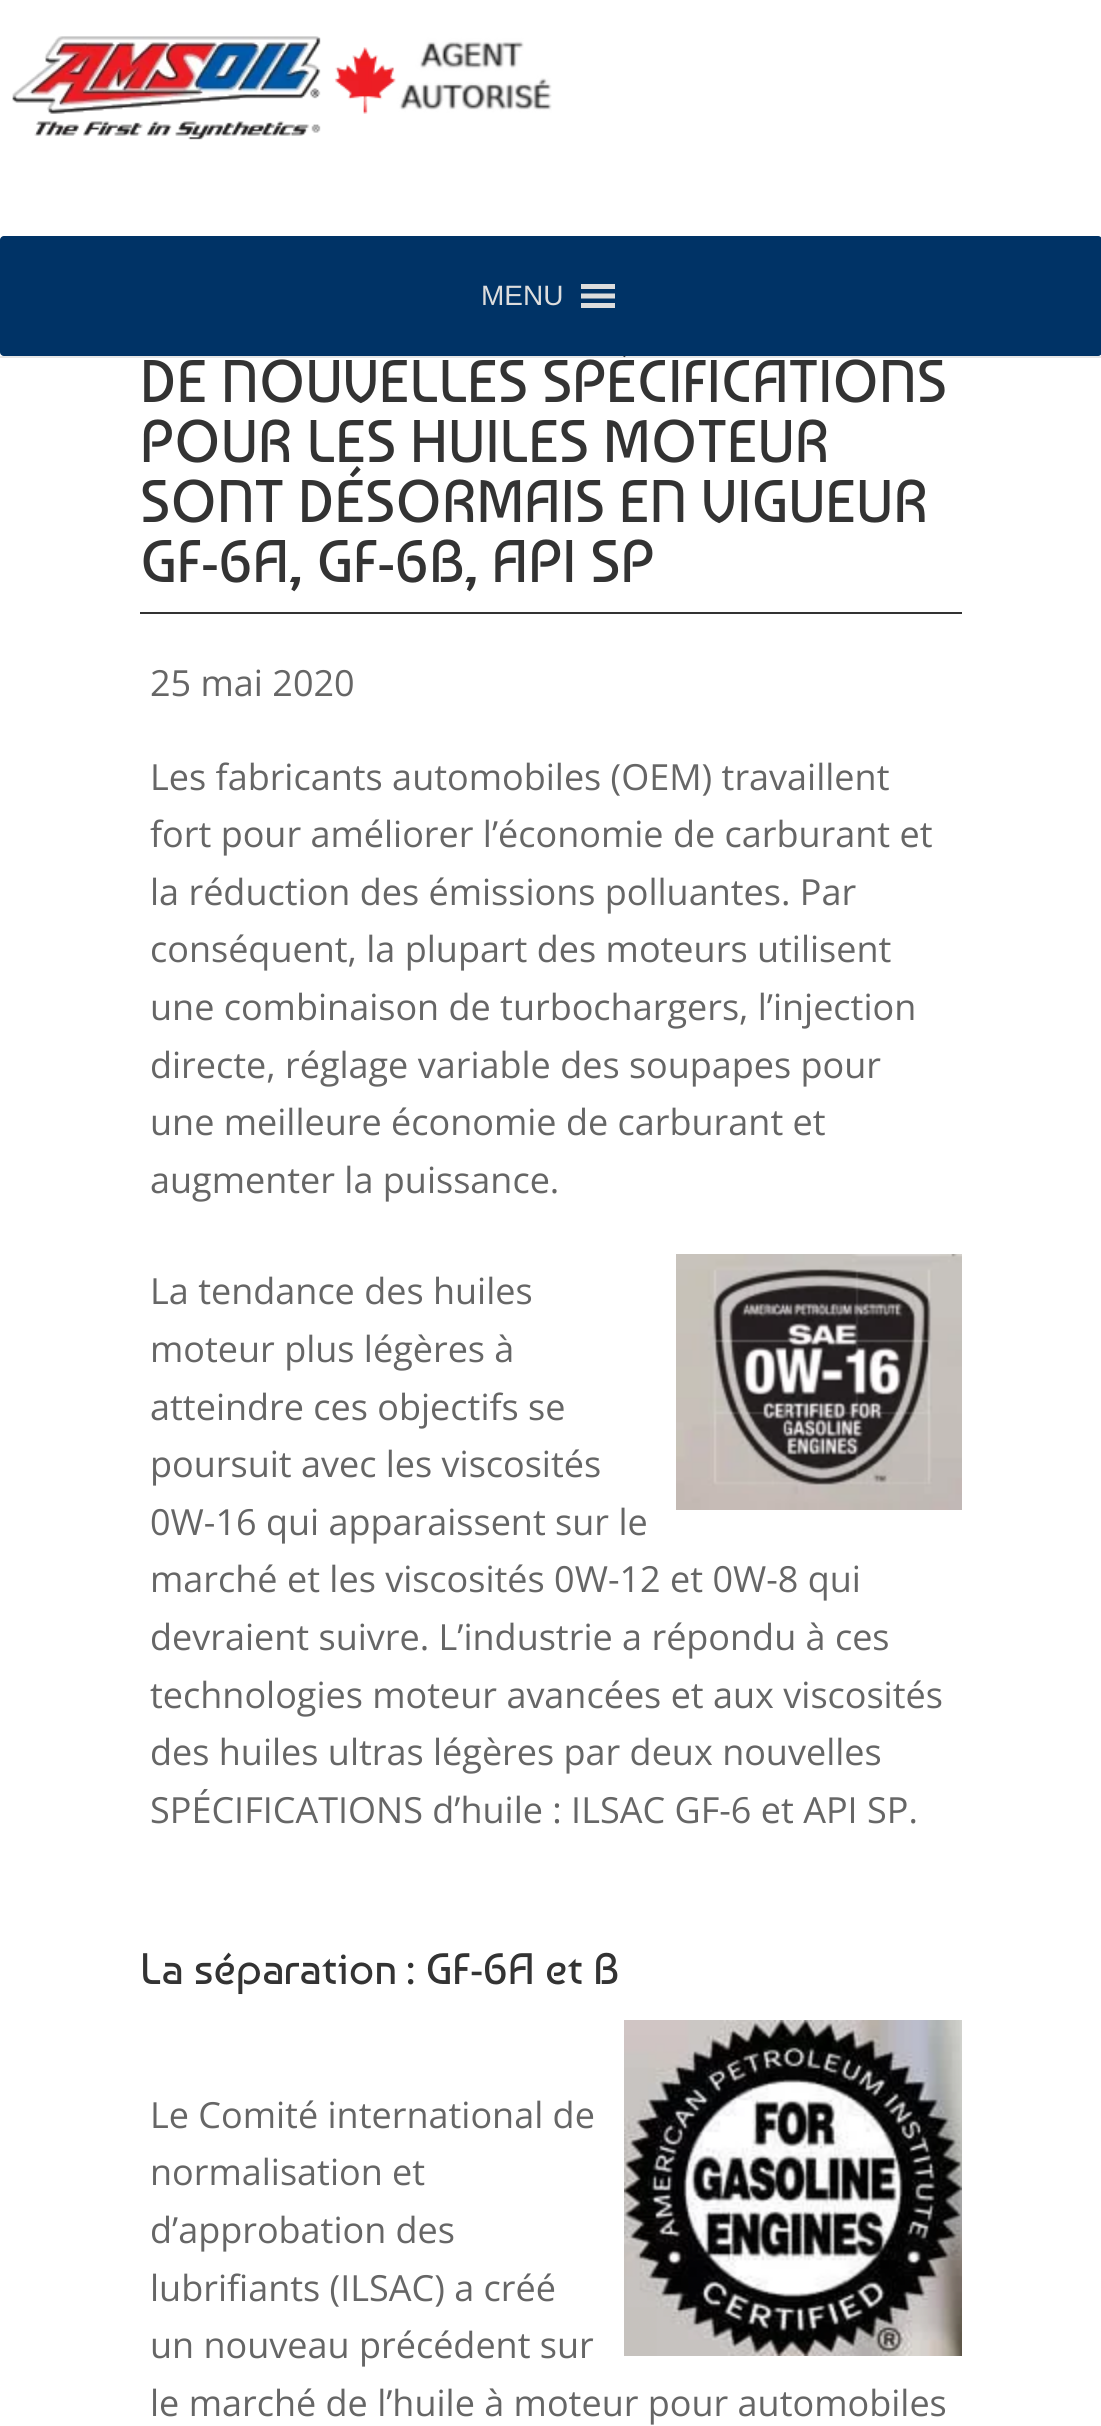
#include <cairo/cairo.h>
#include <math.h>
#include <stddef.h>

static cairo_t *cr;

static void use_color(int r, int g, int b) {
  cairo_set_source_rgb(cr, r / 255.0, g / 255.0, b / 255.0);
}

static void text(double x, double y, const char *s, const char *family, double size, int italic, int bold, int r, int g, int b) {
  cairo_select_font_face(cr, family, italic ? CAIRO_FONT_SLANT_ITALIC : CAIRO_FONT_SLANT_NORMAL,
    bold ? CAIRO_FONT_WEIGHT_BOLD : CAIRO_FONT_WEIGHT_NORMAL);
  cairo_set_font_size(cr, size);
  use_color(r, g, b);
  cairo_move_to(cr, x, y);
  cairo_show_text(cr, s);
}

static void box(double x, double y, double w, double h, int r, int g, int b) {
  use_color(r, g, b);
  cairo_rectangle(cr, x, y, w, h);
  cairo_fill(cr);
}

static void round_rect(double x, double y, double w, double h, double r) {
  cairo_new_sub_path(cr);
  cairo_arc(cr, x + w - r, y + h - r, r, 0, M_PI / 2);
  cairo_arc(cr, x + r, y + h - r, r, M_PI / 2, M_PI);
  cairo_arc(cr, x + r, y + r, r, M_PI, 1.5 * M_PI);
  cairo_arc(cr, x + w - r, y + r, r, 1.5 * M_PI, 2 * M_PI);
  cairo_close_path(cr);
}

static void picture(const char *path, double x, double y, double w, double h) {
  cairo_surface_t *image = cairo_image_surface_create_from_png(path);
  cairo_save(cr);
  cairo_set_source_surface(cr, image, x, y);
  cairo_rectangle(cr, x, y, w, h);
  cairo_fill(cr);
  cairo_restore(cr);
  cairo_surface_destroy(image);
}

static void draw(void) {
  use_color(255, 255, 255);
  cairo_paint(cr);
  cairo_set_source_rgba(cr, 0, 0, 0, 0.1);
  cairo_rectangle(cr, 0, 356, 1101, 2);
  cairo_fill(cr);
  picture("img_01.png", 12, 36, 540, 104);
  box(140, 612, 822, 2, 51, 51, 51);
  picture("img_02.png", 676, 1254, 286, 256);
  picture("img_03.png", 624, 2020, 338, 336);
  text(140, 402, "DE NOUVELLES SPÉCIFICATIONS", "Baumans", 60, 0, 0, 51, 51, 51);
  box(621, 346, 12, 10, 255, 255, 255);
  use_color(0, 51, 102);
  round_rect(0, 236, 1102, 120, 4);
  cairo_fill(cr);
  use_color(221, 221, 221);
  cairo_new_path(cr);
  cairo_move_to(cr, 581, 308);
  cairo_line_to(cr, 615, 308);
  cairo_line_to(cr, 615, 303);
  cairo_line_to(cr, 581, 303);
  cairo_close_path(cr);
  cairo_move_to(cr, 581, 284);
  cairo_line_to(cr, 581, 289);
  cairo_line_to(cr, 615, 289);
  cairo_line_to(cr, 615, 284);
  cairo_close_path(cr);
  cairo_move_to(cr, 581, 298.5);
  cairo_line_to(cr, 615, 298.5);
  cairo_line_to(cr, 615, 293.5);
  cairo_line_to(cr, 581, 293.5);
  cairo_close_path(cr);
  cairo_fill(cr);
  text(481, 305, "MENU", "Liberation Sans", 28, 0, 0, 221, 221, 221);
  text(140, 462, "POUR LES HUILES MOTEUR", "Baumans", 60, 0, 0, 51, 51, 51);
  text(140, 522, "SONT DÉSORMAIS EN VIGUEUR", "Baumans", 60, 0, 0, 51, 51, 51);
  text(140, 582, "GF-6A, GF-6B, API SP", "Baumans", 60, 0, 0, 51, 51, 51);
  text(150, 696, "25 mai 2020", "Open Sans", 36, 0, 0, 102, 102, 102);
  text(150, 790, "Les fabricants automobiles (OEM) travaillent", "Open Sans", 36, 0, 0, 102, 102, 102);
  text(150, 847, "fort pour améliorer l’économie de carburant et", "Open Sans", 36, 0, 0, 102, 102, 102);
  text(150, 905, "la réduction des émissions polluantes. Par", "Open Sans", 36, 0, 0, 102, 102, 102);
  text(150, 962, "conséquent, la plupart des moteurs utilisent", "Open Sans", 36, 0, 0, 102, 102, 102);
  text(150, 1020, "une combinaison de turbochargers, l’injection", "Open Sans", 36, 0, 0, 102, 102, 102);
  text(150, 1078, "directe, réglage variable des soupapes pour", "Open Sans", 36, 0, 0, 102, 102, 102);
  text(150, 1135, "une meilleure économie de carburant et", "Open Sans", 36, 0, 0, 102, 102, 102);
  text(150, 1193, "augmenter la puissance.", "Open Sans", 36, 0, 0, 102, 102, 102);
  text(150, 1304, "La tendance des huiles", "Open Sans", 36, 0, 0, 102, 102, 102);
  text(150, 1362, "moteur plus légères à", "Open Sans", 36, 0, 0, 102, 102, 102);
  text(150, 1420, "atteindre ces objectifs se", "Open Sans", 36, 0, 0, 102, 102, 102);
  text(150, 1477, "poursuit avec les viscosités", "Open Sans", 36, 0, 0, 102, 102, 102);
  text(150, 1535, "0W-16 qui apparaissent sur le", "Open Sans", 36, 0, 0, 102, 102, 102);
  text(150, 1592, "marché et les viscosités 0W-12 et 0W-8 qui", "Open Sans", 36, 0, 0, 102, 102, 102);
  text(150, 1650, "devraient suivre. L’industrie a répondu à ces", "Open Sans", 36, 0, 0, 102, 102, 102);
  text(150, 1708, "technologies moteur avancées et aux viscosités", "Open Sans", 36, 0, 0, 102, 102, 102);
  text(150, 1765, "des huiles ultras légères par deux nouvelles", "Open Sans", 36, 0, 0, 102, 102, 102);
  text(150, 1823, "SPÉCIFICATIONS d’huile : ILSAC GF-6 et API SP.", "Open Sans", 36, 0, 0, 102, 102, 102);
  text(140, 1984, "La séparation : GF-6A et B", "Baumans", 44, 0, 0, 51, 51, 51);
  text(150, 2128, "Le Comité international de", "Open Sans", 36, 0, 0, 102, 102, 102);
  text(150, 2185, "normalisation et", "Open Sans", 36, 0, 0, 102, 102, 102);
  text(150, 2243, "d’approbation des", "Open Sans", 36, 0, 0, 102, 102, 102);
  text(150, 2301, "lubrifiants (ILSAC) a créé", "Open Sans", 36, 0, 0, 102, 102, 102);
  text(150, 2358, "un nouveau précédent sur", "Open Sans", 36, 0, 0, 102, 102, 102);
  text(150, 2416, "le marché de l’huile à moteur pour automobiles", "Open Sans", 36, 0, 0, 102, 102, 102);
}

int main(void) {
  cairo_surface_t *surface = cairo_image_surface_create(CAIRO_FORMAT_RGB24, 1101, 2426);
  cr = cairo_create(surface);
  cairo_font_options_t *options = cairo_font_options_create();
  cairo_font_options_set_hint_metrics(options, CAIRO_HINT_METRICS_OFF);
  cairo_font_options_set_hint_style(options, CAIRO_HINT_STYLE_NONE);
  cairo_set_font_options(cr, options);
  cairo_set_miter_limit(cr, 4);
  draw();
  cairo_surface_write_to_png(surface, "out.png");
  cairo_font_options_destroy(options);
  cairo_destroy(cr);
  cairo_surface_destroy(surface);
  return 0;
}
